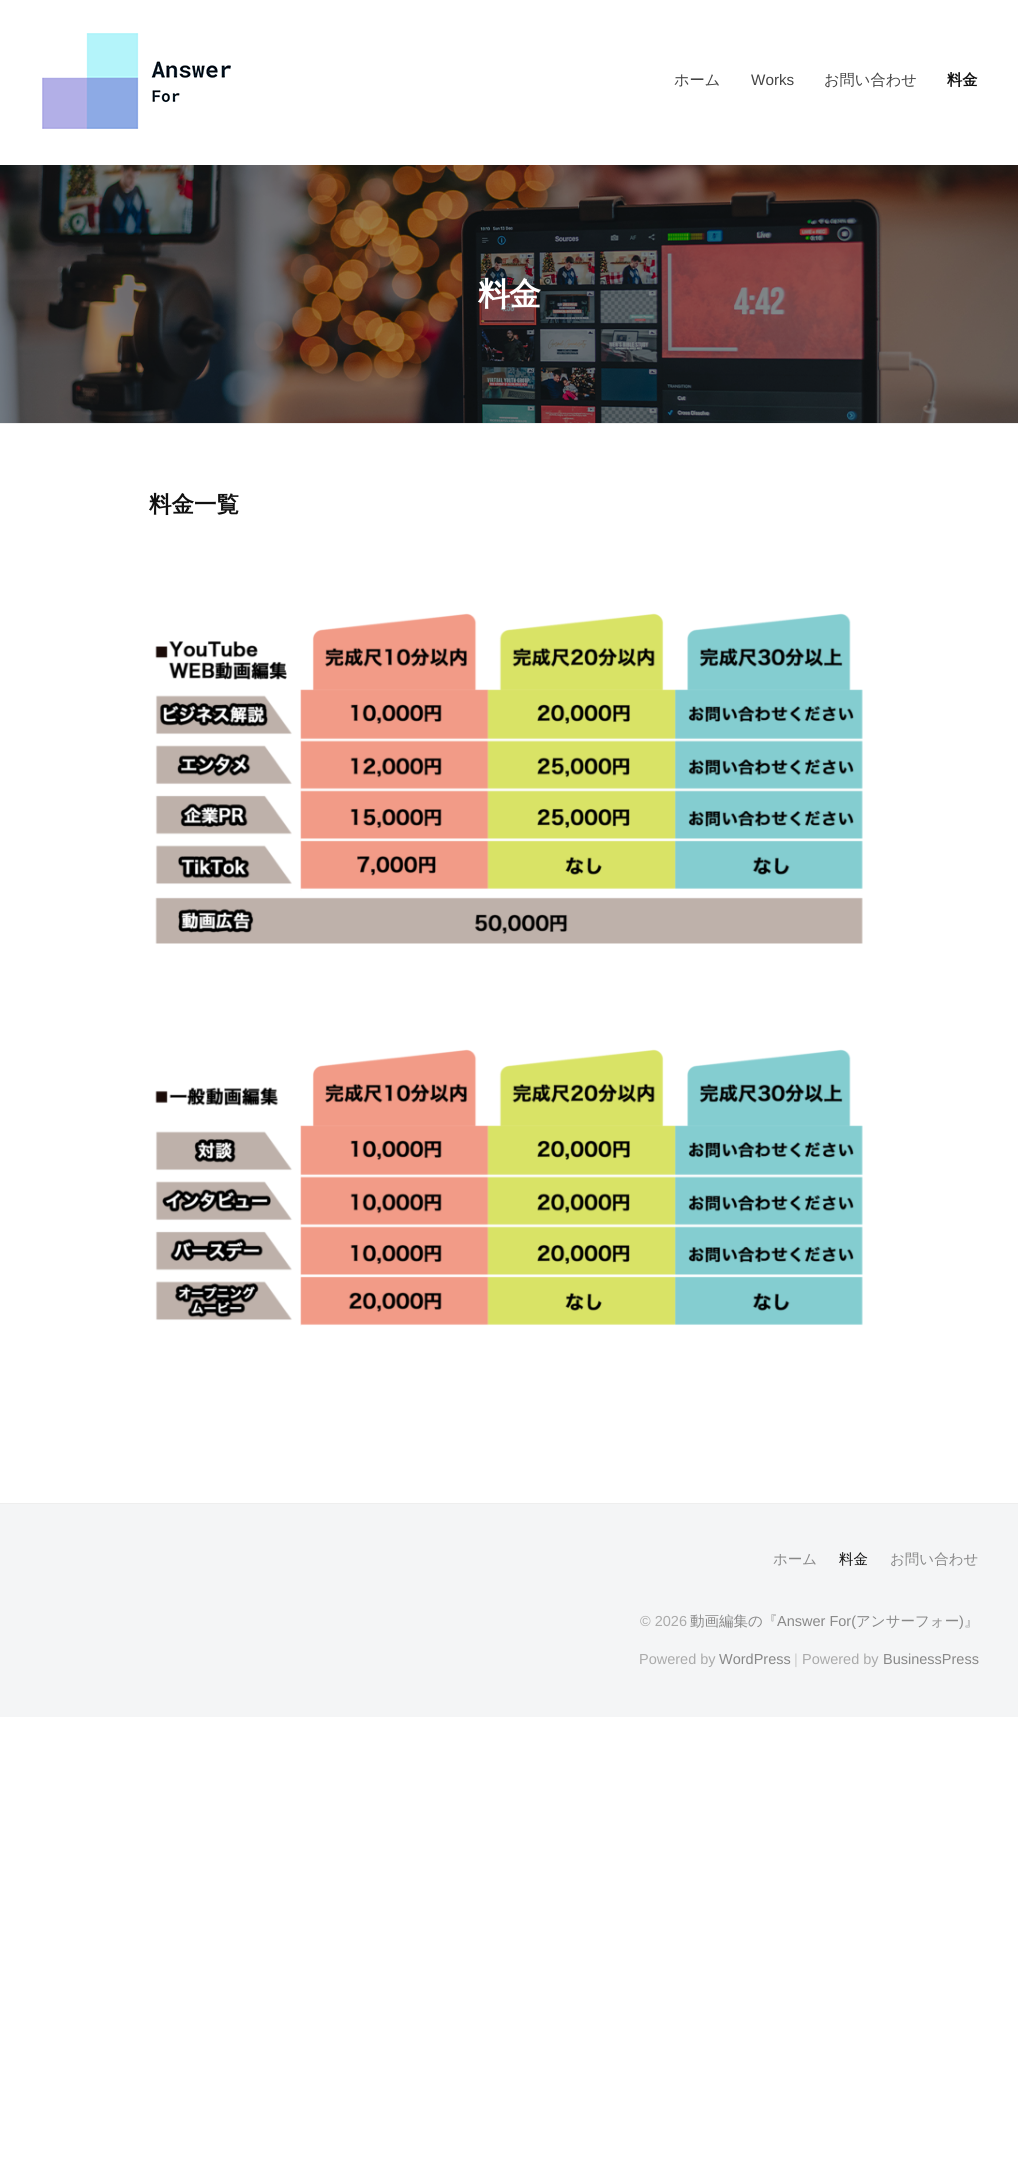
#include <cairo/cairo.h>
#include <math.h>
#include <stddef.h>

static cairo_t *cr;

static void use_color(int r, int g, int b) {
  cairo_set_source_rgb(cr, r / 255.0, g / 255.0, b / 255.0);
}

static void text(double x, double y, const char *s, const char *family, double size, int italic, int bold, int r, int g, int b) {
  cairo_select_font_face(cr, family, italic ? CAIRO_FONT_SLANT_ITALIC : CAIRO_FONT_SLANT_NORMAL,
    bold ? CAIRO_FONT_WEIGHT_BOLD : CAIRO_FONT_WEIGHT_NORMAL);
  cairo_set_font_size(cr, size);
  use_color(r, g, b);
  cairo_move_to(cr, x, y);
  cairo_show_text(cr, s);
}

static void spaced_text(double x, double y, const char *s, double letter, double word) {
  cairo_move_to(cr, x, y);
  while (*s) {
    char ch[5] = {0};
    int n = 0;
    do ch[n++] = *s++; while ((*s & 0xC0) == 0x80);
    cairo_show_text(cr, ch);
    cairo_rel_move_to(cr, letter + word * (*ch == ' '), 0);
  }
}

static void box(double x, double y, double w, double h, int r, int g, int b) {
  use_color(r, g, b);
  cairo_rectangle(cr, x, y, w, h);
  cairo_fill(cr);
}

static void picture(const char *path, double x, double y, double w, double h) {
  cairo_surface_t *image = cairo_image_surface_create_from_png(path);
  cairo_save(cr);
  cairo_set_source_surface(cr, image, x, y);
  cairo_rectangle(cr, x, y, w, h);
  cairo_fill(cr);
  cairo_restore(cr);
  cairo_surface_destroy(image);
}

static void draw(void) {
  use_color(255, 255, 255);
  cairo_paint(cr);
  box(0, 423, 1018, 1, 238, 238, 238);
  picture("img_01.png", 42, 33, 189, 96);
  picture("img_02.png", 0, 165, 1018, 258);
  picture("img_03.png", 155, 613, 708, 331);
  picture("img_04.png", 155, 1049, 708, 277);
  box(0, 1504, 1018, 213, 244, 245, 246);
  box(0, 1503, 1018, 1, 238, 238, 238);
  text(674, 85, "ホーム", "WenQuanYi Zen Hei Medium", 15.25, 0, 0, 68, 68, 68);
  text(751, 85, "Works", "Liberation Sans", 15.25, 0, 0, 68, 68, 68);
  text(824, 85, "お問い合わせ", "WenQuanYi Zen Hei Medium", 15.25, 0, 0, 68, 68, 68);
  text(947, 85, "料金", "WenQuanYi Zen Hei", 15.25, 0, 1, 17, 17, 17);
  cairo_set_font_size(cr, 32);
  use_color(255, 255, 255);
  spaced_text(478, 305, "料金", -1, 0);
  text(149, 512, "料金一覧", "WenQuanYi Zen Hei", 22.5, 0, 1, 17, 17, 17);
  text(773, 1564, "ホーム", "WenQuanYi Zen Hei Medium", 14.5, 0, 0, 136, 136, 136);
  text(839, 1564, "料金", "WenQuanYi Zen Hei Medium", 14.5, 0, 0, 17, 17, 17);
  text(890, 1564, "お問い合わせ", "WenQuanYi Zen Hei Medium", 14.5, 0, 0, 136, 136, 136);
  text(640, 1626, "© 2026", "Liberation Sans", 14.5, 0, 0, 170, 170, 170);
  text(690, 1626, "動画編集の『", "WenQuanYi Zen Hei Medium", 14.5, 0, 0, 136, 136, 136);
  text(777, 1626, "Answer For(", "Liberation Sans", 14.5, 0, 0, 136, 136, 136);
  text(856, 1626, "アンサーフォー", "WenQuanYi Zen Hei Medium", 14.5, 0, 0, 136, 136, 136);
  text(959, 1626, ")", "Liberation Sans", 14.5, 0, 0, 136, 136, 136);
  text(964, 1626, "』", "WenQuanYi Zen Hei Medium", 14.5, 0, 0, 136, 136, 136);
  text(639, 1664, "Powered by", "Liberation Sans", 14.5, 0, 0, 170, 170, 170);
  text(719, 1664, "WordPress", "Liberation Sans", 14.5, 0, 0, 136, 136, 136);
  text(794, 1664, "|", "Liberation Sans", 14.5, 0, 0, 204, 204, 204);
  text(802, 1664, "Powered by", "Liberation Sans", 14.5, 0, 0, 170, 170, 170);
  text(883, 1664, "BusinessPress", "Liberation Sans", 14.5, 0, 0, 136, 136, 136);
}

int main(void) {
  cairo_surface_t *surface = cairo_image_surface_create(CAIRO_FORMAT_RGB24, 1018, 2172);
  cr = cairo_create(surface);
  cairo_font_options_t *options = cairo_font_options_create();
  cairo_font_options_set_hint_metrics(options, CAIRO_HINT_METRICS_OFF);
  cairo_font_options_set_hint_style(options, CAIRO_HINT_STYLE_NONE);
  cairo_set_font_options(cr, options);
  cairo_set_miter_limit(cr, 4);
  draw();
  cairo_surface_write_to_png(surface, "out.png");
  cairo_font_options_destroy(options);
  cairo_destroy(cr);
  cairo_surface_destroy(surface);
  return 0;
}
